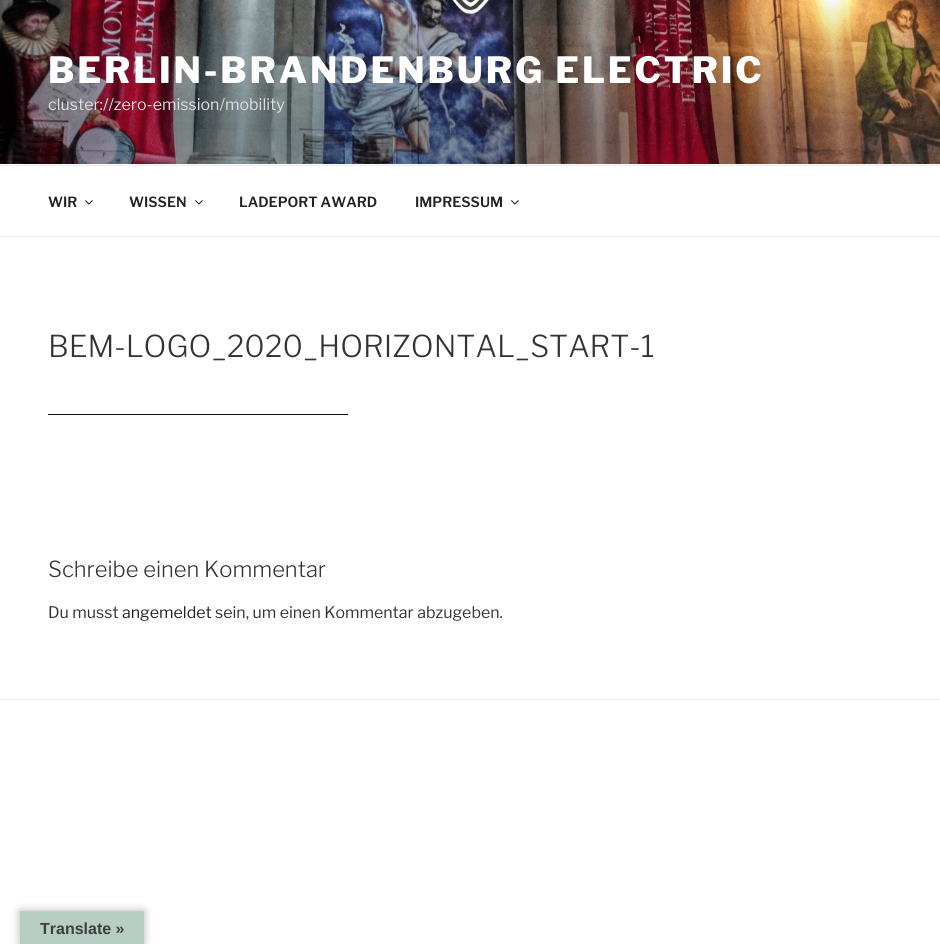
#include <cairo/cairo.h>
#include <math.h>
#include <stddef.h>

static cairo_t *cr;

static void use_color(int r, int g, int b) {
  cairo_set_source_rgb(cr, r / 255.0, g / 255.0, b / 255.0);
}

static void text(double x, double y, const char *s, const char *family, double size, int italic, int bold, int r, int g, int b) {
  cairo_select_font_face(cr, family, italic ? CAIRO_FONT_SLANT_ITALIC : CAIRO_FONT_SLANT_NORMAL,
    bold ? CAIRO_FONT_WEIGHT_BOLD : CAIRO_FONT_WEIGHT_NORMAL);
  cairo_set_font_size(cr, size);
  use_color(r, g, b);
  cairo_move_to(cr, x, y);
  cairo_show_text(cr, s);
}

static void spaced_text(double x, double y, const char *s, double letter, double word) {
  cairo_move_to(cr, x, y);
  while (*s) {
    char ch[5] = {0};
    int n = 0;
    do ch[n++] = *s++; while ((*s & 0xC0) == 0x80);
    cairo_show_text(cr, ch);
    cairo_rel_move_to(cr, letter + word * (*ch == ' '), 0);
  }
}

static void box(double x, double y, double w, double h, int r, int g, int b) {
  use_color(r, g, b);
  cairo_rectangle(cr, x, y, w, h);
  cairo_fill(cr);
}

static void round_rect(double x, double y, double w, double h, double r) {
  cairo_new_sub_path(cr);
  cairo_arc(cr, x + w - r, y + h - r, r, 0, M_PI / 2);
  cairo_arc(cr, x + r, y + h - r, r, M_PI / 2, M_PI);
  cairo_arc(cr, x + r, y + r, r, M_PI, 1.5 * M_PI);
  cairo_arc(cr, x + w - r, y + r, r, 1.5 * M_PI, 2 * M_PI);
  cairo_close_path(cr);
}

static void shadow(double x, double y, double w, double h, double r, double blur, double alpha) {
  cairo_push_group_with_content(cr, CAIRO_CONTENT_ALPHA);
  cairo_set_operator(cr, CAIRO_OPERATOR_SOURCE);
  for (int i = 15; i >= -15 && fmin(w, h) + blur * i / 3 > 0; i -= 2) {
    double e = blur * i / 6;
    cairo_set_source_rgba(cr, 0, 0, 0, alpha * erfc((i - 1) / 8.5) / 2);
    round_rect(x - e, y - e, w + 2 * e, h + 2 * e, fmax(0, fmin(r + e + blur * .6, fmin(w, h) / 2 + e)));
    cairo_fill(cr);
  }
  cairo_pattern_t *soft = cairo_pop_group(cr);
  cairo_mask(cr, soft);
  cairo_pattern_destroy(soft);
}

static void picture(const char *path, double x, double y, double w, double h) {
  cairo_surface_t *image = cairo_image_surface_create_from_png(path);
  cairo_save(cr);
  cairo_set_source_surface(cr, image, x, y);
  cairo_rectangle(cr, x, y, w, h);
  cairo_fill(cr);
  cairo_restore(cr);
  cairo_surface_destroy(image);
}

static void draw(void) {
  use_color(255, 255, 255);
  cairo_paint(cr);
  box(0, 164, 940, 1, 250, 250, 250);
  picture("img_01.png", 0, 0, 940, 164);
  box(0, 165, 940, 1, 238, 238, 238);
  box(0, 236, 940, 1, 238, 238, 238);
  picture("img_02.png", 85, 200, 8, 5);
  picture("img_02.png", 195, 200, 8, 5);
  picture("img_02.png", 511, 200, 8, 5);
  box(48, 414, 300, 1, 15, 15, 15);
  box(0, 699, 940, 1, 238, 238, 238);
  use_color(0, 0, 0);
  shadow(20, 911, 124, 33, 0, 4.5, 0.3);
  box(20, 911, 124, 33, 182, 206, 196);
  cairo_select_font_face(cr, "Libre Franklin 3 Thin", CAIRO_FONT_SLANT_NORMAL, CAIRO_FONT_WEIGHT_NORMAL);
  cairo_set_font_size(cr, 36);
  use_color(255, 255, 255);
  spaced_text(48, 83, "BERLIN-BRANDENBURG ELECTRIC", 2.9, 0);
  text(48, 110, "cluster://zero-emission/mobility", "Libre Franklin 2 Thin", 16, 0, 0, 226, 221, 223);
  text(48, 207, "WIR", "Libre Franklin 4 Thin", 14, 0, 0, 34, 34, 34);
  text(129, 207, "WISSEN", "Libre Franklin 4 Thin", 14, 0, 0, 34, 34, 34);
  text(239, 207, "LADEPORT AWARD", "Libre Franklin 4 Thin", 14, 0, 0, 34, 34, 34);
  text(415, 207, "IMPRESSUM", "Libre Franklin 4 Thin", 14, 0, 0, 34, 34, 34);
  text(48, 357, "BEM-LOGO_2020_HORIZONTAL_START-1", "Libre Franklin Thin", 30, 0, 0, 51, 51, 51);
  text(48, 577, "Schreibe einen Kommentar", "Libre Franklin Thin", 22, 0, 0, 51, 51, 51);
  text(48, 618, "Du musst", "Libre Franklin 2 Thin", 16, 0, 0, 51, 51, 51);
  text(122, 618, "angemeldet", "Libre Franklin 2 Thin", 16, 0, 0, 34, 34, 34);
  text(215, 618, "sein, um einen Kommentar abzugeben.", "Libre Franklin 2 Thin", 16, 0, 0, 51, 51, 51);
  text(40, 934, "Translate »", "Liberation Sans", 16, 0, 1, 62, 62, 62);
}

int main(void) {
  cairo_surface_t *surface = cairo_image_surface_create(CAIRO_FORMAT_RGB24, 940, 944);
  cr = cairo_create(surface);
  cairo_font_options_t *options = cairo_font_options_create();
  cairo_font_options_set_hint_metrics(options, CAIRO_HINT_METRICS_OFF);
  cairo_font_options_set_hint_style(options, CAIRO_HINT_STYLE_NONE);
  cairo_set_font_options(cr, options);
  cairo_set_miter_limit(cr, 4);
  draw();
  cairo_surface_write_to_png(surface, "out.png");
  cairo_font_options_destroy(options);
  cairo_destroy(cr);
  cairo_surface_destroy(surface);
  return 0;
}
